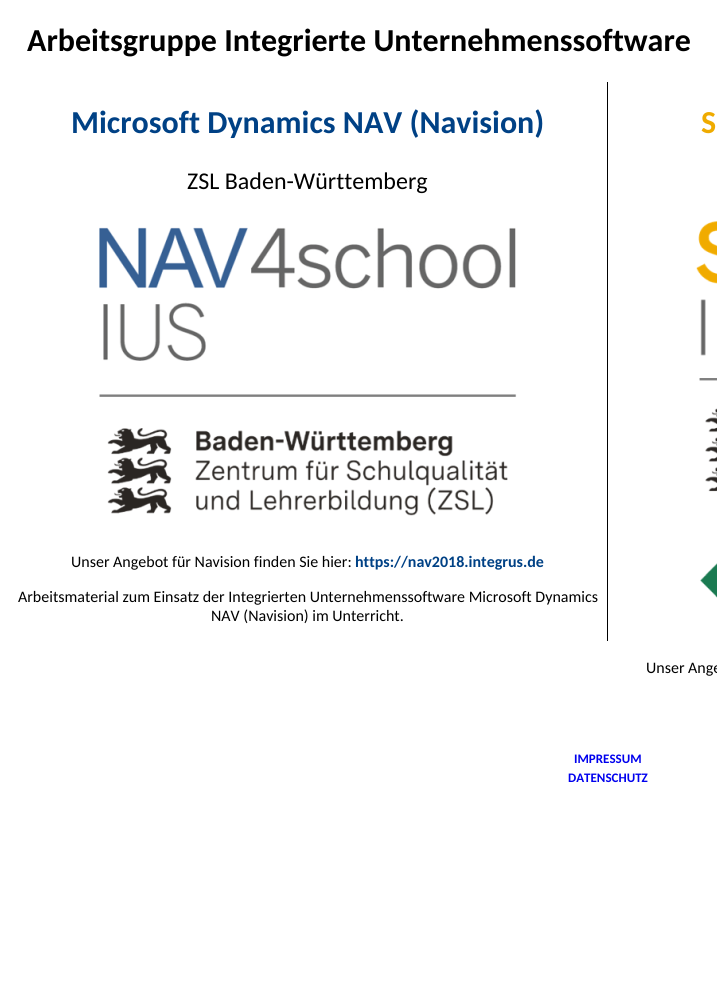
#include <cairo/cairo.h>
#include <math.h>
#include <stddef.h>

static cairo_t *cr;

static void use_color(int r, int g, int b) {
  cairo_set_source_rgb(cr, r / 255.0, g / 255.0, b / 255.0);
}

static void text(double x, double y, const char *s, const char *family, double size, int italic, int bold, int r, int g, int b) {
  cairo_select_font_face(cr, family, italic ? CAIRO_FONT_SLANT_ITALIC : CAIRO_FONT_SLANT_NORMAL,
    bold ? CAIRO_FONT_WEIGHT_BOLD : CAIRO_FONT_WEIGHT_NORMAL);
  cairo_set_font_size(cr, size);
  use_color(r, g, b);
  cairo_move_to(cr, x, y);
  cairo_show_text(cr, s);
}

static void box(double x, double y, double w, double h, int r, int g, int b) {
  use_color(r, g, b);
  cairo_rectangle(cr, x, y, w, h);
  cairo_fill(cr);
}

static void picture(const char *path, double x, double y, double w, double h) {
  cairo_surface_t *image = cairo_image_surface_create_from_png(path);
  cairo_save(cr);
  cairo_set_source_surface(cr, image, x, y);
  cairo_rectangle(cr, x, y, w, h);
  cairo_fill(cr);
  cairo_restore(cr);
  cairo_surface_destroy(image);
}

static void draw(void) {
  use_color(255, 255, 255);
  cairo_paint(cr);
  box(607, 82, 1, 559, 0, 0, 0);
  picture("img_01.png", 99, 227, 418, 289);
  picture("img_02.png", 696, 221, 21, 377);
  text(27, 51, "Arbeitsgruppe Integrierte Unternehmenssoftware", "Carlito", 32, 0, 1, 0, 0, 0);
  text(71, 133, "Microsoft Dynamics NAV (Navision)", "Carlito", 32, 0, 1, 0, 65, 133);
  text(187, 189, "ZSL Baden-Württemberg", "Carlito", 24, 0, 0, 0, 0, 0);
  text(71, 567, "Unser Angebot für Navision finden Sie hier:", "Carlito", 16, 0, 0, 0, 0, 0);
  text(355, 567, "https://nav2018.integrus.de", "Carlito", 16, 0, 1, 0, 65, 133);
  text(18, 602, "Arbeitsmaterial zum Einsatz der Integrierten Unternehmenssoftware Microsoft Dynamics", "Carlito", 16, 0, 0, 0, 0, 0);
  text(211, 621, "NAV (Navision) im Unterricht.", "Carlito", 16, 0, 0, 0, 0, 0);
  text(701, 133, "S", "Carlito", 32, 0, 1, 239, 171, 0);
  text(646, 673, "Unser Ange", "Carlito", 16, 0, 0, 0, 0, 0);
  text(574, 763, "IMPRESSUM", "Carlito", 13, 0, 1, 0, 0, 238);
  text(568, 782, "DATENSCHUTZ", "Carlito", 13, 0, 1, 0, 0, 238);
}

int main(void) {
  cairo_surface_t *surface = cairo_image_surface_create(CAIRO_FORMAT_RGB24, 717, 984);
  cr = cairo_create(surface);
  cairo_font_options_t *options = cairo_font_options_create();
  cairo_font_options_set_hint_metrics(options, CAIRO_HINT_METRICS_OFF);
  cairo_font_options_set_hint_style(options, CAIRO_HINT_STYLE_NONE);
  cairo_set_font_options(cr, options);
  cairo_set_miter_limit(cr, 4);
  draw();
  cairo_surface_write_to_png(surface, "out.png");
  cairo_font_options_destroy(options);
  cairo_destroy(cr);
  cairo_surface_destroy(surface);
  return 0;
}
